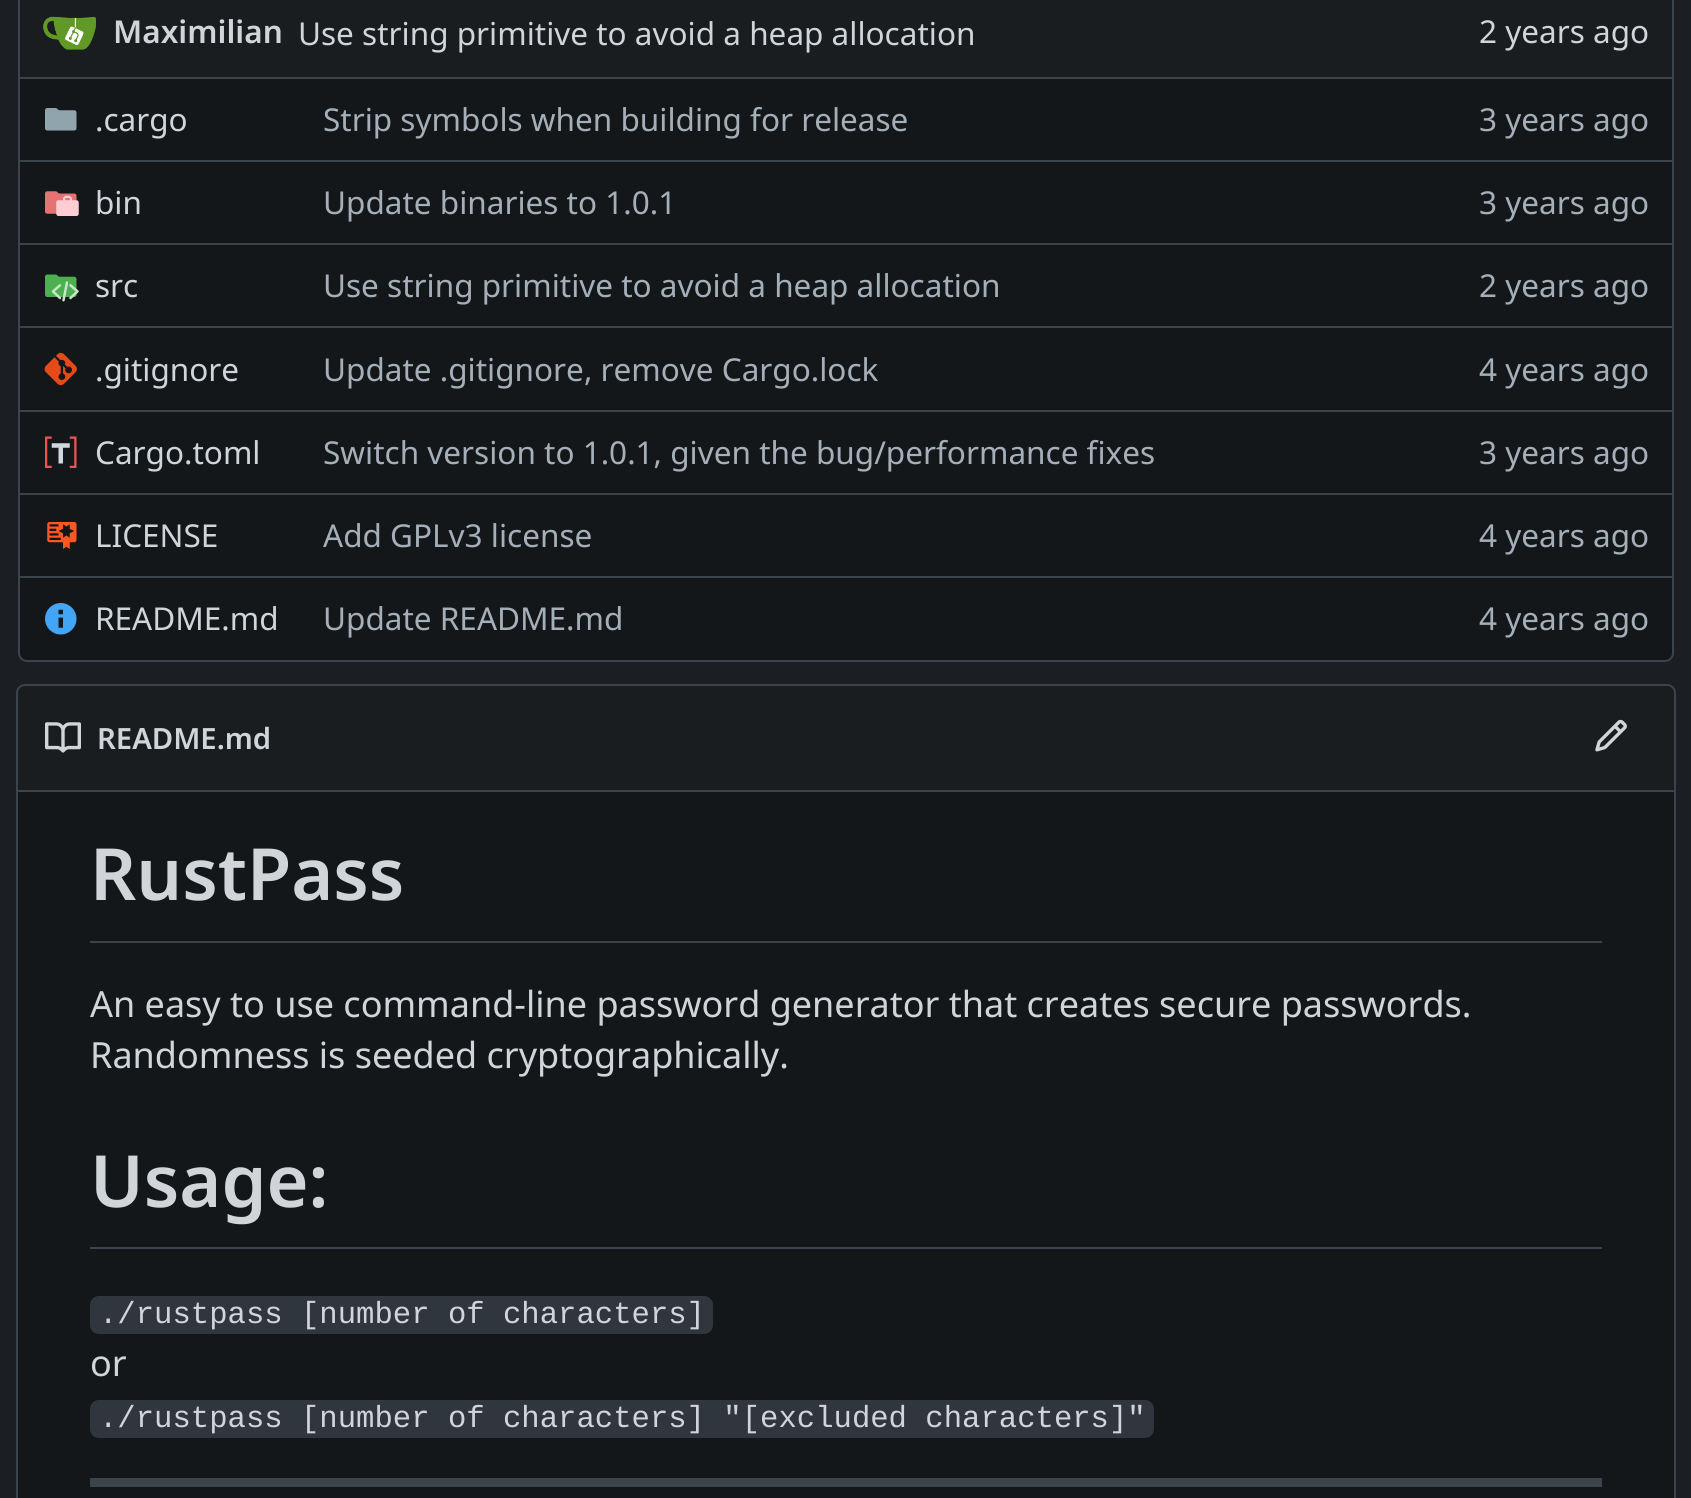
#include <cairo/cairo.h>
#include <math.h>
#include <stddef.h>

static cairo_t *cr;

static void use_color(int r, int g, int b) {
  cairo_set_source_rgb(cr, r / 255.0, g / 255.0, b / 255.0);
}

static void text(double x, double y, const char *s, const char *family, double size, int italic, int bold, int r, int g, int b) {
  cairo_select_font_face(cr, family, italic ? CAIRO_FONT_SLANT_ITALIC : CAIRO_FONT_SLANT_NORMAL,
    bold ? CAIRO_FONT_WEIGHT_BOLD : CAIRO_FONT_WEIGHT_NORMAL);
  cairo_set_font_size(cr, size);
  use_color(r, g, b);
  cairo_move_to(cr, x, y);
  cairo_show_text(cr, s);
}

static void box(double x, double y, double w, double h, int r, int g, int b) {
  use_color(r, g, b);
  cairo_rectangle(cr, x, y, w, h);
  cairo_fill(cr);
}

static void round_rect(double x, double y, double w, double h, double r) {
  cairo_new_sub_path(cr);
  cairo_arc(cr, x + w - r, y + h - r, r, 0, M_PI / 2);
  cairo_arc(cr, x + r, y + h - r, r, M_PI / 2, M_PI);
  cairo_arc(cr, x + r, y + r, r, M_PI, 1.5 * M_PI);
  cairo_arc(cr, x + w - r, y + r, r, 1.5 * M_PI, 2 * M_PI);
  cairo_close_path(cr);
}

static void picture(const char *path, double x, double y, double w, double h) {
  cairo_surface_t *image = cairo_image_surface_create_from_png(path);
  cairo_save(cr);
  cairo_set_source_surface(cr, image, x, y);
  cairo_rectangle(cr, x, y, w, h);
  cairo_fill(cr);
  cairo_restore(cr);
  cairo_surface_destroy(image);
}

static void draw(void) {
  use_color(27, 31, 35);
  cairo_paint(cr);
  use_color(20, 23, 26);
  round_rect(19, -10, 1654, 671, 8);
  cairo_fill_preserve(cr);
  use_color(59, 68, 76);
  cairo_stroke(cr);
  box(20, 0, 1652, 77, 26, 29, 31);
  picture("img_01.png", 43, 16, 54, 34);
  box(20, 77, 1436, 2, 59, 68, 76);
  picture("img_02.png", 45, 108, 32, 23);
  box(1456, 77, 216, 2, 59, 68, 76);
  box(20, 160, 1436, 2, 59, 68, 76);
  picture("img_03.png", 45, 191, 34, 25);
  box(1456, 160, 216, 2, 59, 68, 76);
  box(20, 243, 1436, 2, 59, 68, 76);
  picture("img_04.png", 45, 274, 34, 28);
  box(1456, 243, 216, 2, 59, 68, 76);
  box(20, 326, 1436, 2, 59, 68, 76);
  picture("img_05.png", 44, 352, 33, 34);
  box(1456, 326, 216, 2, 59, 68, 76);
  box(20, 410, 1436, 2, 59, 68, 76);
  picture("img_06.png", 45, 436, 32, 32);
  box(1456, 410, 216, 2, 59, 68, 76);
  box(20, 493, 1436, 2, 59, 68, 76);
  picture("img_07.png", 47, 522, 30, 27);
  box(1456, 493, 216, 2, 59, 68, 76);
  box(20, 576, 1436, 2, 59, 68, 76);
  picture("img_08.png", 45, 603, 32, 32);
  box(1456, 576, 216, 2, 59, 68, 76);
  use_color(26, 29, 31);
  cairo_new_path(cr);
  cairo_move_to(cr, 25, 685);
  cairo_line_to(cr, 1667, 685);
  cairo_curve_to(cr, 1671.5, 685, 1675, 688.5, 1675, 693);
  cairo_line_to(cr, 1675, 791);
  cairo_line_to(cr, 17, 791);
  cairo_line_to(cr, 17, 693);
  cairo_curve_to(cr, 17, 688.5, 20.5, 685, 25, 685);
  cairo_close_path(cr);
  cairo_fill_preserve(cr);
  use_color(59, 68, 76);
  cairo_stroke(cr);
  picture("img_09.png", 45, 722, 36, 31);
  picture("img_10.png", 1595, 719, 32, 33);
  box(18, 792, 1656, 706, 20, 23, 26);
  use_color(59, 68, 76);
  cairo_set_fill_rule(cr, CAIRO_FILL_RULE_EVEN_ODD);
  cairo_new_path(cr);
  cairo_move_to(cr, 16, 792);
  cairo_line_to(cr, 1676, 792);
  cairo_line_to(cr, 1676, 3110);
  cairo_curve_to(cr, 1676, 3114, 1672, 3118, 1667, 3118);
  cairo_line_to(cr, 25, 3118);
  cairo_curve_to(cr, 20, 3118, 16, 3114, 16, 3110);
  cairo_close_path(cr);
  cairo_move_to(cr, 18, 792);
  cairo_line_to(cr, 1674, 792);
  cairo_line_to(cr, 1674, 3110);
  cairo_curve_to(cr, 1674, 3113, 1671, 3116, 1667, 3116);
  cairo_line_to(cr, 25, 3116);
  cairo_curve_to(cr, 21, 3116, 18, 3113, 18, 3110);
  cairo_close_path(cr);
  cairo_fill(cr);
  box(90, 941, 1512, 2, 59, 68, 76);
  box(90, 1247, 1512, 2, 59, 68, 76);
  use_color(48, 54, 61);
  round_rect(90, 1296, 623, 38, 9);
  cairo_fill(cr);
  round_rect(90, 1400, 1064, 38, 9);
  cairo_fill(cr);
  box(90, 1478, 1512, 9, 59, 68, 76);
  text(113, 43, "Maximilian", "Noto Sans SemiBold", 31.5, 0, 0, 208, 213, 218);
  text(298, 45, "Use string primitive to avoid a heap allocation", "Noto Sans", 31.5, 0, 0, 208, 213, 218);
  text(1479, 43, "2 years ago", "Noto Sans", 31.5, 0, 0, 208, 213, 218);
  text(95, 131, ".cargo", "Noto Sans", 31.5, 0, 0, 208, 213, 218);
  text(323, 131, "Strip symbols when building for release", "Noto Sans", 31.5, 0, 0, 165, 175, 185);
  text(1479, 131, "3 years ago", "Noto Sans", 31.5, 0, 0, 165, 175, 185);
  text(95, 214, "bin", "Noto Sans", 31.5, 0, 0, 208, 213, 218);
  text(323, 214, "Update binaries to 1.0.1", "Noto Sans", 31.5, 0, 0, 165, 175, 185);
  text(1479, 214, "3 years ago", "Noto Sans", 31.5, 0, 0, 165, 175, 185);
  text(95, 297, "src", "Noto Sans", 31.5, 0, 0, 208, 213, 218);
  text(323, 297, "Use string primitive to avoid a heap allocation", "Noto Sans", 31.5, 0, 0, 165, 175, 185);
  text(1479, 297, "2 years ago", "Noto Sans", 31.5, 0, 0, 165, 175, 185);
  text(95, 381, ".gitignore", "Noto Sans", 31.5, 0, 0, 208, 213, 218);
  text(323, 381, "Update .gitignore, remove Cargo.lock", "Noto Sans", 31.5, 0, 0, 165, 175, 185);
  text(1479, 381, "4 years ago", "Noto Sans", 31.5, 0, 0, 165, 175, 185);
  text(95, 464, "Cargo.toml", "Noto Sans", 31.5, 0, 0, 208, 213, 218);
  text(323, 464, "Switch version to 1.0.1, given the bug/performance fixes", "Noto Sans", 31.5, 0, 0, 165, 175, 185);
  text(1479, 464, "3 years ago", "Noto Sans", 31.5, 0, 0, 165, 175, 185);
  text(95, 547, "LICENSE", "Noto Sans", 31.5, 0, 0, 208, 213, 218);
  text(323, 547, "Add GPLv3 license", "Noto Sans", 31.5, 0, 0, 165, 175, 185);
  text(1479, 547, "4 years ago", "Noto Sans", 31.5, 0, 0, 165, 175, 185);
  text(95, 630, "README.md", "Noto Sans", 31.5, 0, 0, 208, 213, 218);
  text(323, 630, "Update README.md", "Noto Sans", 31.5, 0, 0, 165, 175, 185);
  text(1479, 630, "4 years ago", "Noto Sans", 31.5, 0, 0, 165, 175, 185);
  text(97, 749, "README.md", "Noto Sans SemiBold", 29.25, 0, 0, 208, 213, 218);
  text(90, 900, "RustPass", "Noto Sans SemiBold", 72, 0, 0, 208, 213, 218);
  text(90, 1017, "An easy to use command-line password generator that creates secure passwords.", "Noto Sans", 36, 0, 0, 208, 213, 218);
  text(90, 1068, "Randomness is seeded cryptographically.", "Noto Sans", 36, 0, 0, 208, 213, 218);
  text(90, 1207, "Usage:", "Noto Sans SemiBold", 72, 0, 0, 208, 213, 218);
  text(99, 1323, "./rustpass [number of characters]", "Liberation Mono", 30.6, 0, 0, 208, 213, 218);
  text(90, 1376, "or", "Noto Sans", 36, 0, 0, 208, 213, 218);
  text(99, 1427, "./rustpass [number of characters] \"[excluded characters]\"", "Liberation Mono", 30.6, 0, 0, 208, 213, 218);
}

int main(void) {
  cairo_surface_t *surface = cairo_image_surface_create(CAIRO_FORMAT_RGB24, 1691, 1498);
  cr = cairo_create(surface);
  cairo_font_options_t *options = cairo_font_options_create();
  cairo_font_options_set_hint_metrics(options, CAIRO_HINT_METRICS_OFF);
  cairo_font_options_set_hint_style(options, CAIRO_HINT_STYLE_NONE);
  cairo_set_font_options(cr, options);
  cairo_set_miter_limit(cr, 4);
  draw();
  cairo_surface_write_to_png(surface, "out.png");
  cairo_font_options_destroy(options);
  cairo_destroy(cr);
  cairo_surface_destroy(surface);
  return 0;
}
